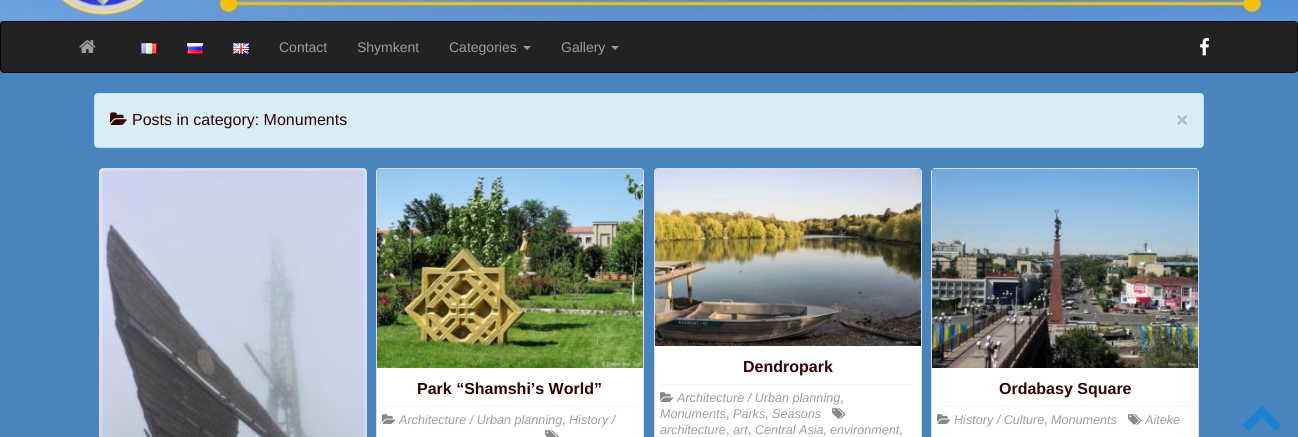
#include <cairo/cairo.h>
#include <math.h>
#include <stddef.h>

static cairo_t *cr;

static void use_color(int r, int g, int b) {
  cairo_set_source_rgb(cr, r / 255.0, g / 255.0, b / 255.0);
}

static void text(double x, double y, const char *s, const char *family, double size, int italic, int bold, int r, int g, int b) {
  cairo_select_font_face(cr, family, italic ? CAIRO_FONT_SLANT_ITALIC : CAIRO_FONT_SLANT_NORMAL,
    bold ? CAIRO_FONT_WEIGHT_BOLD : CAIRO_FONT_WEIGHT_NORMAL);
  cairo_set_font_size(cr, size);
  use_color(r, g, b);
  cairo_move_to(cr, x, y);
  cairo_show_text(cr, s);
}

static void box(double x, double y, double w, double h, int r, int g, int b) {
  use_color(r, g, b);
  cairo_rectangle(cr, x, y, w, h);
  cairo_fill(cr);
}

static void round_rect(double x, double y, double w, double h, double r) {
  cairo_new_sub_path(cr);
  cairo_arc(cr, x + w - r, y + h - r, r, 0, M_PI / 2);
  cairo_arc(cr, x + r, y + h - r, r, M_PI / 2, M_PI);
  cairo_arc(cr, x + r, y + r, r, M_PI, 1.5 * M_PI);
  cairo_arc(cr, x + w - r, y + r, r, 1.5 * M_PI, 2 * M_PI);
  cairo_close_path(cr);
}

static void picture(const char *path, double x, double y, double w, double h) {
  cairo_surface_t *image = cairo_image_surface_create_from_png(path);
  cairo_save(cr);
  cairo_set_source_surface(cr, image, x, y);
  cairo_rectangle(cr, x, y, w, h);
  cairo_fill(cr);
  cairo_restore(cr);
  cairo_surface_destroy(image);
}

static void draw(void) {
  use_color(72, 133, 191);
  cairo_paint(cr);
  picture("img_01.png", 0, 0, 1298, 21);
  use_color(34, 34, 34);
  round_rect(0.5, 21.5, 1297, 51, 3.5);
  cairo_fill_preserve(cr);
  use_color(8, 8, 8);
  cairo_set_line_width(cr, 1);
  cairo_stroke(cr);
  picture("img_02.png", 79, 40, 17, 13);
  picture("img_03.png", 141, 43, 16, 11);
  picture("img_04.png", 187, 43, 16, 11);
  picture("img_05.png", 233, 43, 16, 11);
  use_color(157, 157, 157);
  cairo_new_path(cr);
  cairo_move_to(cr, 523, 46);
  cairo_line_to(cr, 531, 46);
  cairo_line_to(cr, 527, 50);
  cairo_close_path(cr);
  cairo_fill(cr);
  cairo_new_path(cr);
  cairo_move_to(cr, 611, 46);
  cairo_line_to(cr, 619, 46);
  cairo_line_to(cr, 615, 50);
  cairo_close_path(cr);
  cairo_fill(cr);
  picture("img_06.png", 1200, 38, 9, 18);
  use_color(217, 237, 247);
  round_rect(94.5, 93.5, 1109, 54, 3.5);
  cairo_fill_preserve(cr);
  use_color(188, 232, 241);
  cairo_stroke(cr);
  picture("img_07.png", 110, 112, 17, 13);
  round_rect(99.5, 168.5, 267, 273, 3.5);
  use_color(221, 221, 221);
  cairo_stroke(cr);
  picture("img_08.png", 100, 169, 266, 268);
  use_color(255, 255, 255);
  round_rect(376.5, 168.5, 267, 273, 3.5);
  cairo_fill_preserve(cr);
  use_color(221, 221, 221);
  cairo_stroke(cr);
  picture("img_09.png", 377, 169, 266, 199);
  box(382, 406, 256, 1, 245, 245, 245);
  picture("img_10.png", 382, 414, 14, 10);
  picture("img_11.png", 545, 430, 14, 7);
  use_color(255, 255, 255);
  round_rect(654.5, 168.5, 267, 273, 3.5);
  cairo_fill_preserve(cr);
  use_color(221, 221, 221);
  cairo_stroke(cr);
  picture("img_12.png", 655, 169, 266, 177);
  box(660, 384, 256, 1, 245, 245, 245);
  picture("img_10.png", 660, 392, 14, 10);
  picture("img_13.png", 832, 408, 14, 11);
  use_color(255, 255, 255);
  round_rect(931.5, 168.5, 267, 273, 3.5);
  cairo_fill_preserve(cr);
  use_color(221, 221, 221);
  cairo_stroke(cr);
  picture("img_14.png", 932, 169, 266, 199);
  box(937, 406, 256, 1, 245, 245, 245);
  picture("img_10.png", 937, 414, 14, 10);
  picture("img_13.png", 1128, 414, 14, 11);
  picture("img_15.png", 1243, 406, 38, 25);
  text(279, 52, "Contact", "Liberation Sans", 14, 0, 0, 157, 157, 157);
  text(357, 52, "Shymkent", "Liberation Sans", 14, 0, 0, 157, 157, 157);
  text(449, 52, "Categories", "Liberation Sans", 14, 0, 0, 157, 157, 157);
  text(561, 52, "Gallery", "Liberation Sans", 14, 0, 0, 157, 157, 157);
  text(132, 125, "Posts in category: Monuments", "Liberation Sans", 16, 0, 0, 51, 0, 0);
  text(1176, 127, "×", "Liberation Sans", 21, 0, 1, 174, 190, 198);
  text(417, 394, "Park “Shamshi’s World”", "Liberation Sans", 16, 0, 1, 51, 0, 0);
  text(399, 424, "Architecture / Urban planning", "Liberation Sans", 12.6, 1, 0, 157, 157, 157);
  text(562, 424, ",", "Liberation Sans", 12.6, 0, 0, 136, 136, 136);
  text(569, 424, "History /", "Liberation Sans", 12.6, 1, 0, 157, 157, 157);
  text(743, 372, "Dendropark", "Liberation Sans", 16, 0, 1, 51, 0, 0);
  text(677, 402, "Architecture / Urban planning", "Liberation Sans", 12.6, 1, 0, 157, 157, 157);
  text(840, 402, ",", "Liberation Sans", 12.6, 0, 0, 136, 136, 136);
  text(660, 418, "Monuments", "Liberation Sans", 12.6, 1, 0, 157, 157, 157);
  text(726, 418, ",", "Liberation Sans", 12.6, 0, 0, 136, 136, 136);
  text(733, 418, "Parks", "Liberation Sans", 12.6, 1, 0, 157, 157, 157);
  text(765, 418, ",", "Liberation Sans", 12.6, 0, 0, 136, 136, 136);
  text(772, 418, "Seasons", "Liberation Sans", 12.6, 1, 0, 157, 157, 157);
  text(660, 434, "architecture", "Liberation Sans", 12.6, 1, 0, 157, 157, 157);
  text(726, 434, ",", "Liberation Sans", 12.6, 0, 0, 136, 136, 136);
  text(733, 434, "art", "Liberation Sans", 12.6, 1, 0, 157, 157, 157);
  text(748, 434, ",", "Liberation Sans", 12.6, 0, 0, 136, 136, 136);
  text(755, 434, "Central Asia", "Liberation Sans", 12.6, 1, 0, 157, 157, 157);
  text(823, 434, ",", "Liberation Sans", 12.6, 0, 0, 136, 136, 136);
  text(830, 434, "environment", "Liberation Sans", 12.6, 1, 0, 157, 157, 157);
  text(899, 434, ",", "Liberation Sans", 12.6, 0, 0, 136, 136, 136);
  text(999, 394, "Ordabasy Square", "Liberation Sans", 16, 0, 1, 51, 0, 0);
  text(954, 424, "History / Culture", "Liberation Sans", 12.6, 1, 0, 157, 157, 157);
  text(1044, 424, ",", "Liberation Sans", 12.6, 0, 0, 136, 136, 136);
  text(1051, 424, "Monuments", "Liberation Sans", 12.6, 1, 0, 157, 157, 157);
  text(1145, 424, "Aiteke", "Liberation Sans", 12.6, 1, 0, 157, 157, 157);
}

int main(void) {
  cairo_surface_t *surface = cairo_image_surface_create(CAIRO_FORMAT_RGB24, 1298, 437);
  cr = cairo_create(surface);
  cairo_font_options_t *options = cairo_font_options_create();
  cairo_font_options_set_hint_metrics(options, CAIRO_HINT_METRICS_OFF);
  cairo_font_options_set_hint_style(options, CAIRO_HINT_STYLE_NONE);
  cairo_set_font_options(cr, options);
  cairo_set_miter_limit(cr, 4);
  draw();
  cairo_surface_write_to_png(surface, "out.png");
  cairo_font_options_destroy(options);
  cairo_destroy(cr);
  cairo_surface_destroy(surface);
  return 0;
}
